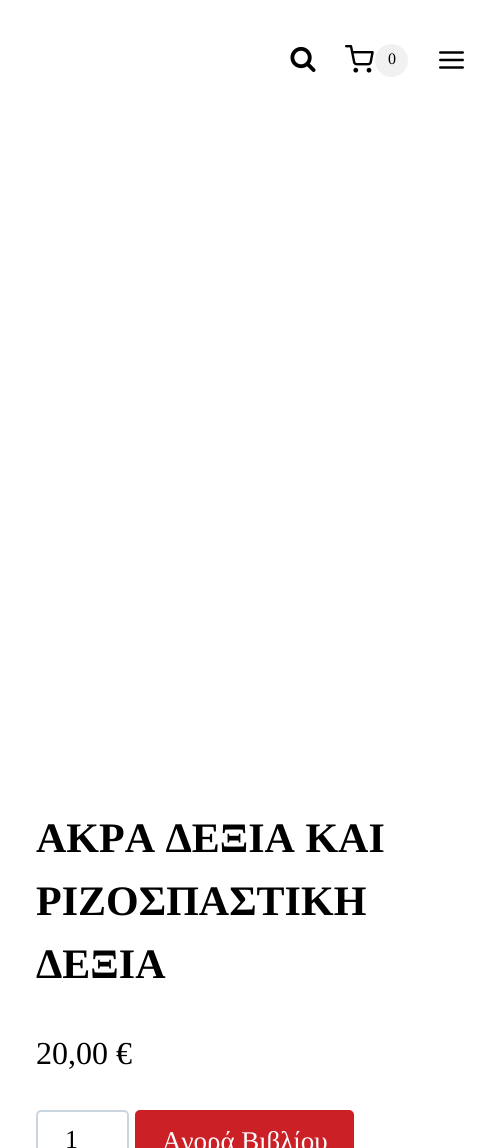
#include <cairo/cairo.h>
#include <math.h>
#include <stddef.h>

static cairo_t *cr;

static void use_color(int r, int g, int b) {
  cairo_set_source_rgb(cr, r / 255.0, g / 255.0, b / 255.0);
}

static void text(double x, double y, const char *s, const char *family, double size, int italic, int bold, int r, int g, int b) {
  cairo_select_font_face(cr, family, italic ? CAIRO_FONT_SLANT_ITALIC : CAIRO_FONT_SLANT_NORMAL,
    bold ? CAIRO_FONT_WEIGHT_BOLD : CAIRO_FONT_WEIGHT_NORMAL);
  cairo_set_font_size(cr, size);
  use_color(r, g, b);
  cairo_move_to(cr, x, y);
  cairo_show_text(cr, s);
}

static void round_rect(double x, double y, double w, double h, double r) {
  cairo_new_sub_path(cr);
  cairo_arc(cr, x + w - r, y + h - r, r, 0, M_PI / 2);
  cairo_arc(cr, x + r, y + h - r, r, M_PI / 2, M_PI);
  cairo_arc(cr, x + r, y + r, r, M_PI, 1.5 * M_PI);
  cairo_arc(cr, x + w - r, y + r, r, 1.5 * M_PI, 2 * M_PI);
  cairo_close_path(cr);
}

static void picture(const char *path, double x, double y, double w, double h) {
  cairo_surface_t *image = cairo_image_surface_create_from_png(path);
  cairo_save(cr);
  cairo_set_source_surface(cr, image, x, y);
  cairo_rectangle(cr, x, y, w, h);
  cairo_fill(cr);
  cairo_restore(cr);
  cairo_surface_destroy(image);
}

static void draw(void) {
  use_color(255, 255, 255);
  cairo_paint(cr);
  picture("img_01.png", 290, 46, 26, 26);
  picture("img_02.png", 345, 45, 29, 28);
  use_color(241, 241, 241);
  cairo_arc(cr, 391.5, 60.5, 16.5, 0, 2 * M_PI);
  cairo_fill(cr);
  picture("img_03.png", 439, 51, 25, 18);
  round_rect(37, 1111, 91, 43, 4);
  use_color(203, 213, 224);
  cairo_stroke(cr);
  use_color(202, 32, 38);
  round_rect(135, 1110, 219, 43, 5);
  cairo_fill(cr);
  text(388, 64, "0", "Liberation Serif", 16, 0, 0, 0, 0, 0);
  text(36, 852, "ΑΚΡΑ ΔΕΞΙΑ ΚΑΙ", "Liberation Serif", 42, 0, 1, 0, 0, 0);
  text(36, 915, "ΡΙΖΟΣΠΑΣΤΙΚΗ", "Liberation Serif", 42, 0, 1, 0, 0, 0);
  text(36, 978, "ΔΕΞΙΑ", "Liberation Serif", 42, 0, 1, 0, 0, 0);
  text(36, 1064, "20,00 €", "Liberation Serif", 32, 0, 0, 0, 0, 0);
  text(65, 1148, "1", "Liberation Serif", 26, 0, 0, 0, 0, 0);
  text(162, 1150, "Αγορά Βιβλίου", "Liberation Serif", 27, 0, 0, 255, 255, 255);
}

int main(void) {
  cairo_surface_t *surface = cairo_image_surface_create(CAIRO_FORMAT_RGB24, 485, 1148);
  cr = cairo_create(surface);
  cairo_font_options_t *options = cairo_font_options_create();
  cairo_font_options_set_hint_metrics(options, CAIRO_HINT_METRICS_OFF);
  cairo_font_options_set_hint_style(options, CAIRO_HINT_STYLE_NONE);
  cairo_set_font_options(cr, options);
  cairo_set_miter_limit(cr, 4);
  draw();
  cairo_surface_write_to_png(surface, "out.png");
  cairo_font_options_destroy(options);
  cairo_destroy(cr);
  cairo_surface_destroy(surface);
  return 0;
}
